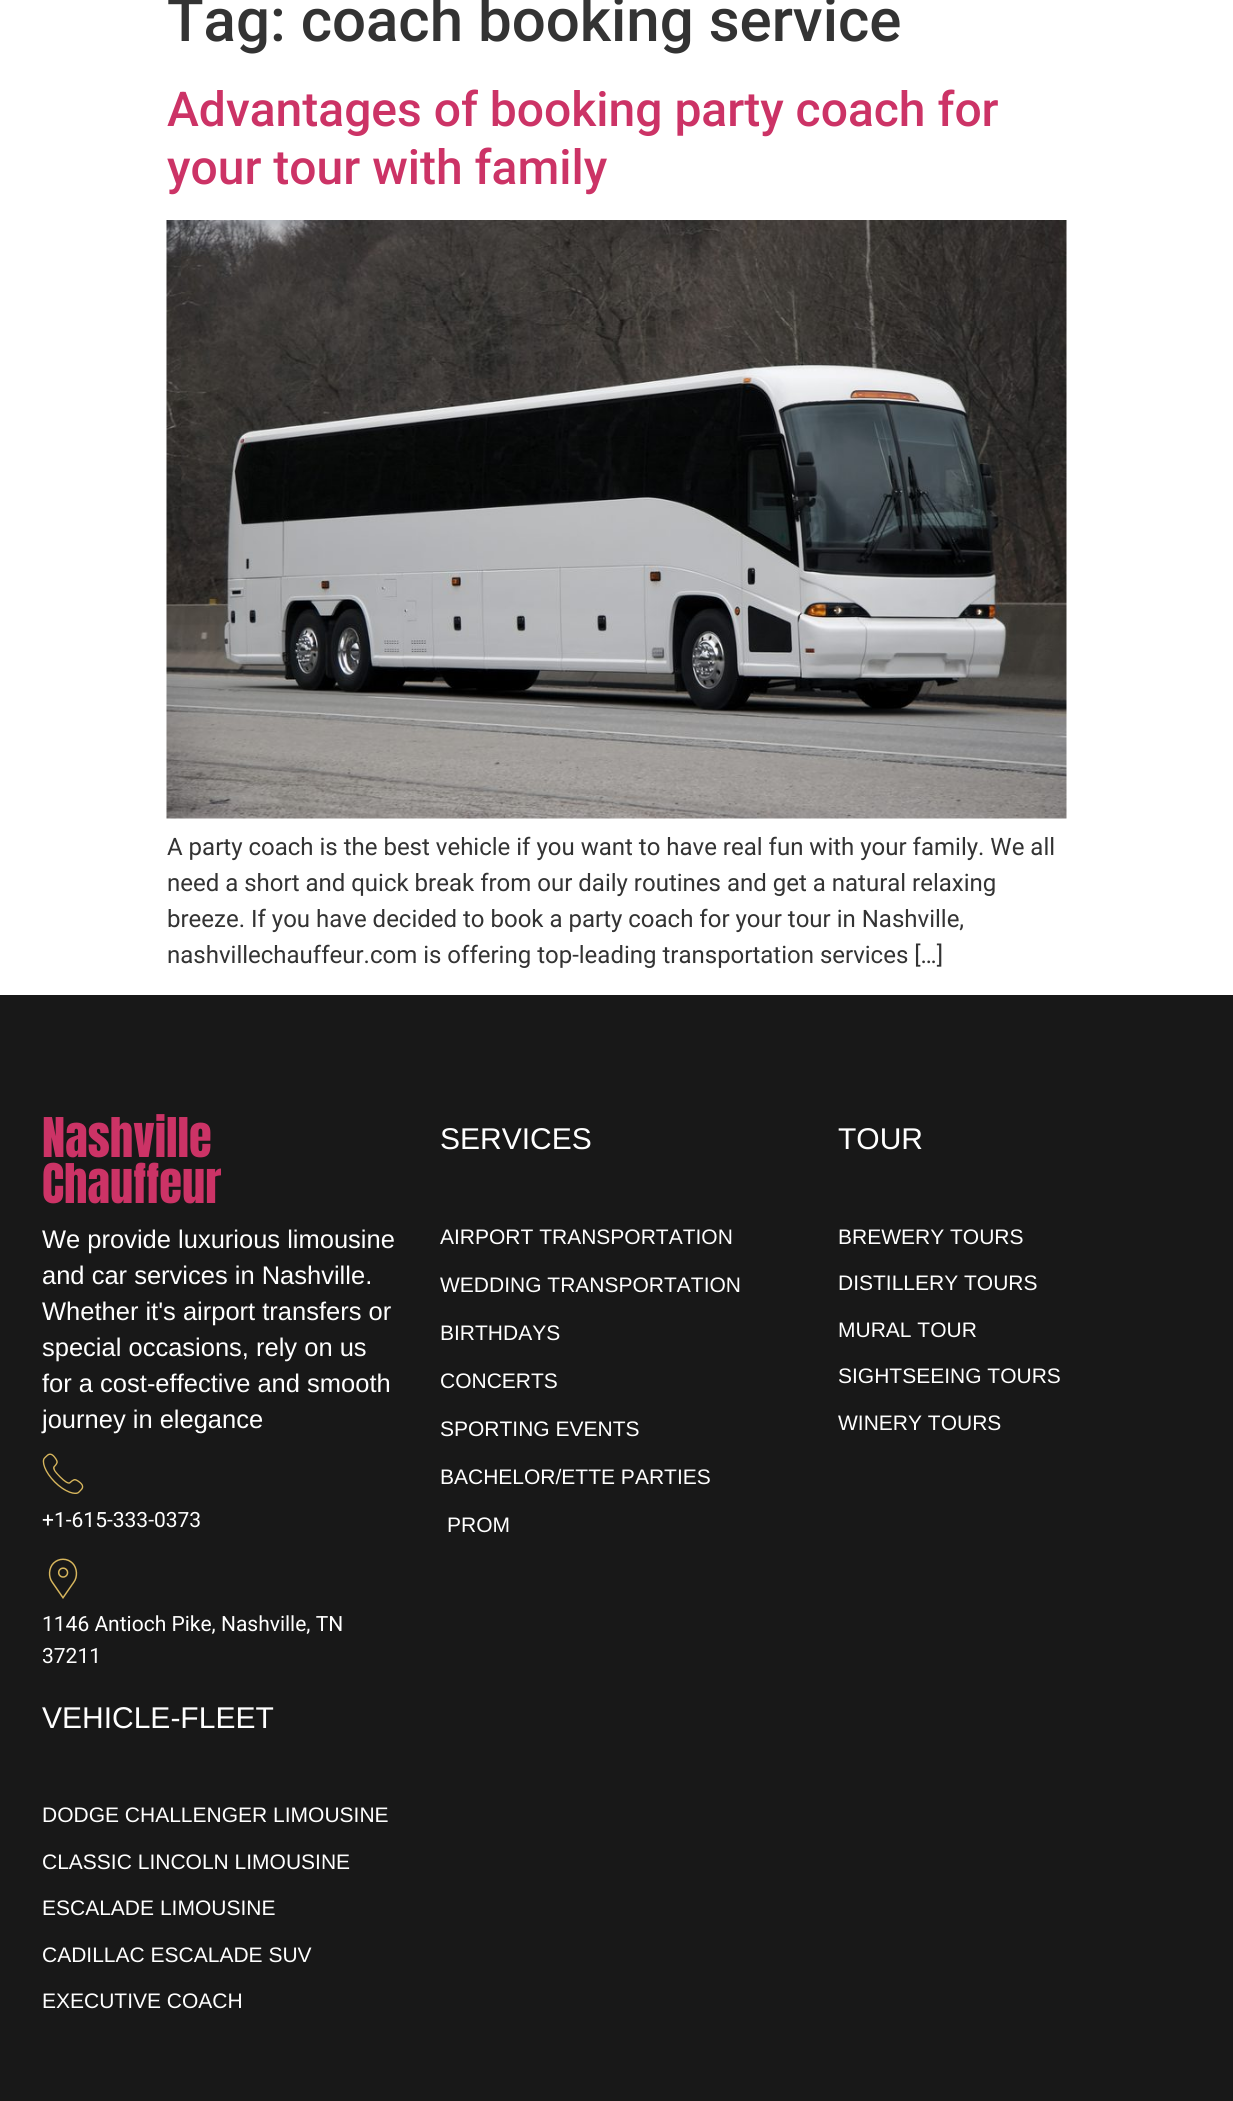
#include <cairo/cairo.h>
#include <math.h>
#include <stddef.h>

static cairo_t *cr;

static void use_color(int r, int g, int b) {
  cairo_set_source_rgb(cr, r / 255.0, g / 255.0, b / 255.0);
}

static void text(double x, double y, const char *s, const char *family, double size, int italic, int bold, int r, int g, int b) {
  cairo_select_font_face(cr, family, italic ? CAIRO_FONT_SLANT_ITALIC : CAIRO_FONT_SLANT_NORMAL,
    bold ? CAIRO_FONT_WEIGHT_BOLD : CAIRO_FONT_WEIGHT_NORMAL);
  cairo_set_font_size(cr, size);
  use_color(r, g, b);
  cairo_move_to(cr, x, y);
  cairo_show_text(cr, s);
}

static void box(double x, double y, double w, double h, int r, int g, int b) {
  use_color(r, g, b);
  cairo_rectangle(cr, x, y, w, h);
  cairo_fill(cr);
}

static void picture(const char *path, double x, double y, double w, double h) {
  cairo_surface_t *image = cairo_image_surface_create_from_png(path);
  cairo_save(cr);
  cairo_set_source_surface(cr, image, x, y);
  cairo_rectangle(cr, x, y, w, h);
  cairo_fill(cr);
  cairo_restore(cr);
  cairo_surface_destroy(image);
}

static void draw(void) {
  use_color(255, 255, 255);
  cairo_paint(cr);
  picture("img_01.png", 166, 220, 901, 599);
  box(0, 995, 1233, 1106, 24, 24, 24);
  picture("img_02.png", 42, 1453, 42, 41);
  picture("img_03.png", 48, 1558, 30, 41);
  text(167, 41, "Tag: coach booking service", "Roboto Medium", 60, 0, 0, 51, 51, 51);
  text(167, 126, "Advantages of booking party coach for", "Roboto Medium", 48, 0, 0, 204, 51, 102);
  text(167, 184, "your tour with family", "Roboto Medium", 48, 0, 0, 204, 51, 102);
  text(167, 855, "A party coach is the best vehicle if you want to have real fun with your family. We all", "Roboto", 24, 0, 0, 51, 51, 51);
  text(167, 891, "need a short and quick break from our daily routines and get a natural relaxing", "Roboto", 24, 0, 0, 51, 51, 51);
  text(167, 927, "breeze. If you have decided to book a party coach for your tour in Nashville,", "Roboto", 24, 0, 0, 51, 51, 51);
  text(167, 963, "nashvillechauffeur.com is offering top-leading transportation services […]", "Roboto", 24, 0, 0, 51, 51, 51);
  text(42, 1157, "Nashville", "Anton", 46.5, 0, 0, 204, 51, 102);
  text(42, 1203, "Chauffeur", "Anton", 46.5, 0, 0, 204, 51, 102);
  text(42, 1248, "We provide luxurious limousine", "Liberation Sans", 25.5, 0, 0, 255, 255, 255);
  text(42, 1284, "and car services in Nashville.", "Liberation Sans", 25.5, 0, 0, 255, 255, 255);
  text(42, 1320, "Whether it's airport transfers or", "Liberation Sans", 25.5, 0, 0, 255, 255, 255);
  text(42, 1356, "special occasions, rely on us", "Liberation Sans", 25.5, 0, 0, 255, 255, 255);
  text(42, 1392, "for a cost-effective and smooth", "Liberation Sans", 25.5, 0, 0, 255, 255, 255);
  text(42, 1428, "journey in elegance", "Liberation Sans", 25.5, 0, 0, 255, 255, 255);
  text(42, 1527, "+1-615-333-0373", "Roboto", 21, 0, 0, 255, 255, 255);
  text(42, 1631, "1146 Antioch Pike, Nashville, TN", "Roboto", 21, 0, 0, 255, 255, 255);
  text(42, 1663, "37211", "Roboto", 21, 0, 0, 255, 255, 255);
  text(440, 1149, "SERVICES", "Liberation Sans", 30, 0, 0, 255, 255, 255);
  text(440, 1244, "AIRPORT TRANSPORTATION", "Liberation Sans", 21, 0, 0, 255, 255, 255);
  text(440, 1292, "WEDDING TRANSPORTATION", "Liberation Sans", 21, 0, 0, 255, 255, 255);
  text(440, 1340, "BIRTHDAYS", "Liberation Sans", 21, 0, 0, 255, 255, 255);
  text(440, 1388, "CONCERTS", "Liberation Sans", 21, 0, 0, 255, 255, 255);
  text(440, 1436, "SPORTING EVENTS", "Liberation Sans", 21, 0, 0, 255, 255, 255);
  text(440, 1484, "BACHELOR/ETTE PARTIES", "Liberation Sans", 21, 0, 0, 255, 255, 255);
  text(447, 1532, "PROM", "Liberation Sans", 21, 0, 0, 255, 255, 255);
  text(838, 1149, "TOUR", "Liberation Sans", 30, 0, 0, 255, 255, 255);
  text(838, 1244, "BREWERY TOURS", "Liberation Sans", 21, 0, 0, 255, 255, 255);
  text(838, 1290, "DISTILLERY TOURS", "Liberation Sans", 21, 0, 0, 255, 255, 255);
  text(838, 1337, "MURAL TOUR", "Liberation Sans", 21, 0, 0, 255, 255, 255);
  text(838, 1383, "SIGHTSEEING TOURS", "Liberation Sans", 21, 0, 0, 255, 255, 255);
  text(838, 1430, "WINERY TOURS", "Liberation Sans", 21, 0, 0, 255, 255, 255);
  text(42, 1728, "VEHICLE-FLEET", "Liberation Sans", 30, 0, 0, 255, 255, 255);
  text(42, 1822, "DODGE CHALLENGER LIMOUSINE", "Liberation Sans", 21, 0, 0, 255, 255, 255);
  text(42, 1869, "CLASSIC LINCOLN LIMOUSINE", "Liberation Sans", 21, 0, 0, 255, 255, 255);
  text(42, 1915, "ESCALADE LIMOUSINE", "Liberation Sans", 21, 0, 0, 255, 255, 255);
  text(42, 1962, "CADILLAC ESCALADE SUV", "Liberation Sans", 21, 0, 0, 255, 255, 255);
  text(42, 2008, "EXECUTIVE COACH", "Liberation Sans", 21, 0, 0, 255, 255, 255);
}

int main(void) {
  cairo_surface_t *surface = cairo_image_surface_create(CAIRO_FORMAT_RGB24, 1233, 2101);
  cr = cairo_create(surface);
  cairo_font_options_t *options = cairo_font_options_create();
  cairo_font_options_set_hint_metrics(options, CAIRO_HINT_METRICS_OFF);
  cairo_font_options_set_hint_style(options, CAIRO_HINT_STYLE_NONE);
  cairo_set_font_options(cr, options);
  cairo_set_miter_limit(cr, 4);
  draw();
  cairo_surface_write_to_png(surface, "out.png");
  cairo_font_options_destroy(options);
  cairo_destroy(cr);
  cairo_surface_destroy(surface);
  return 0;
}
